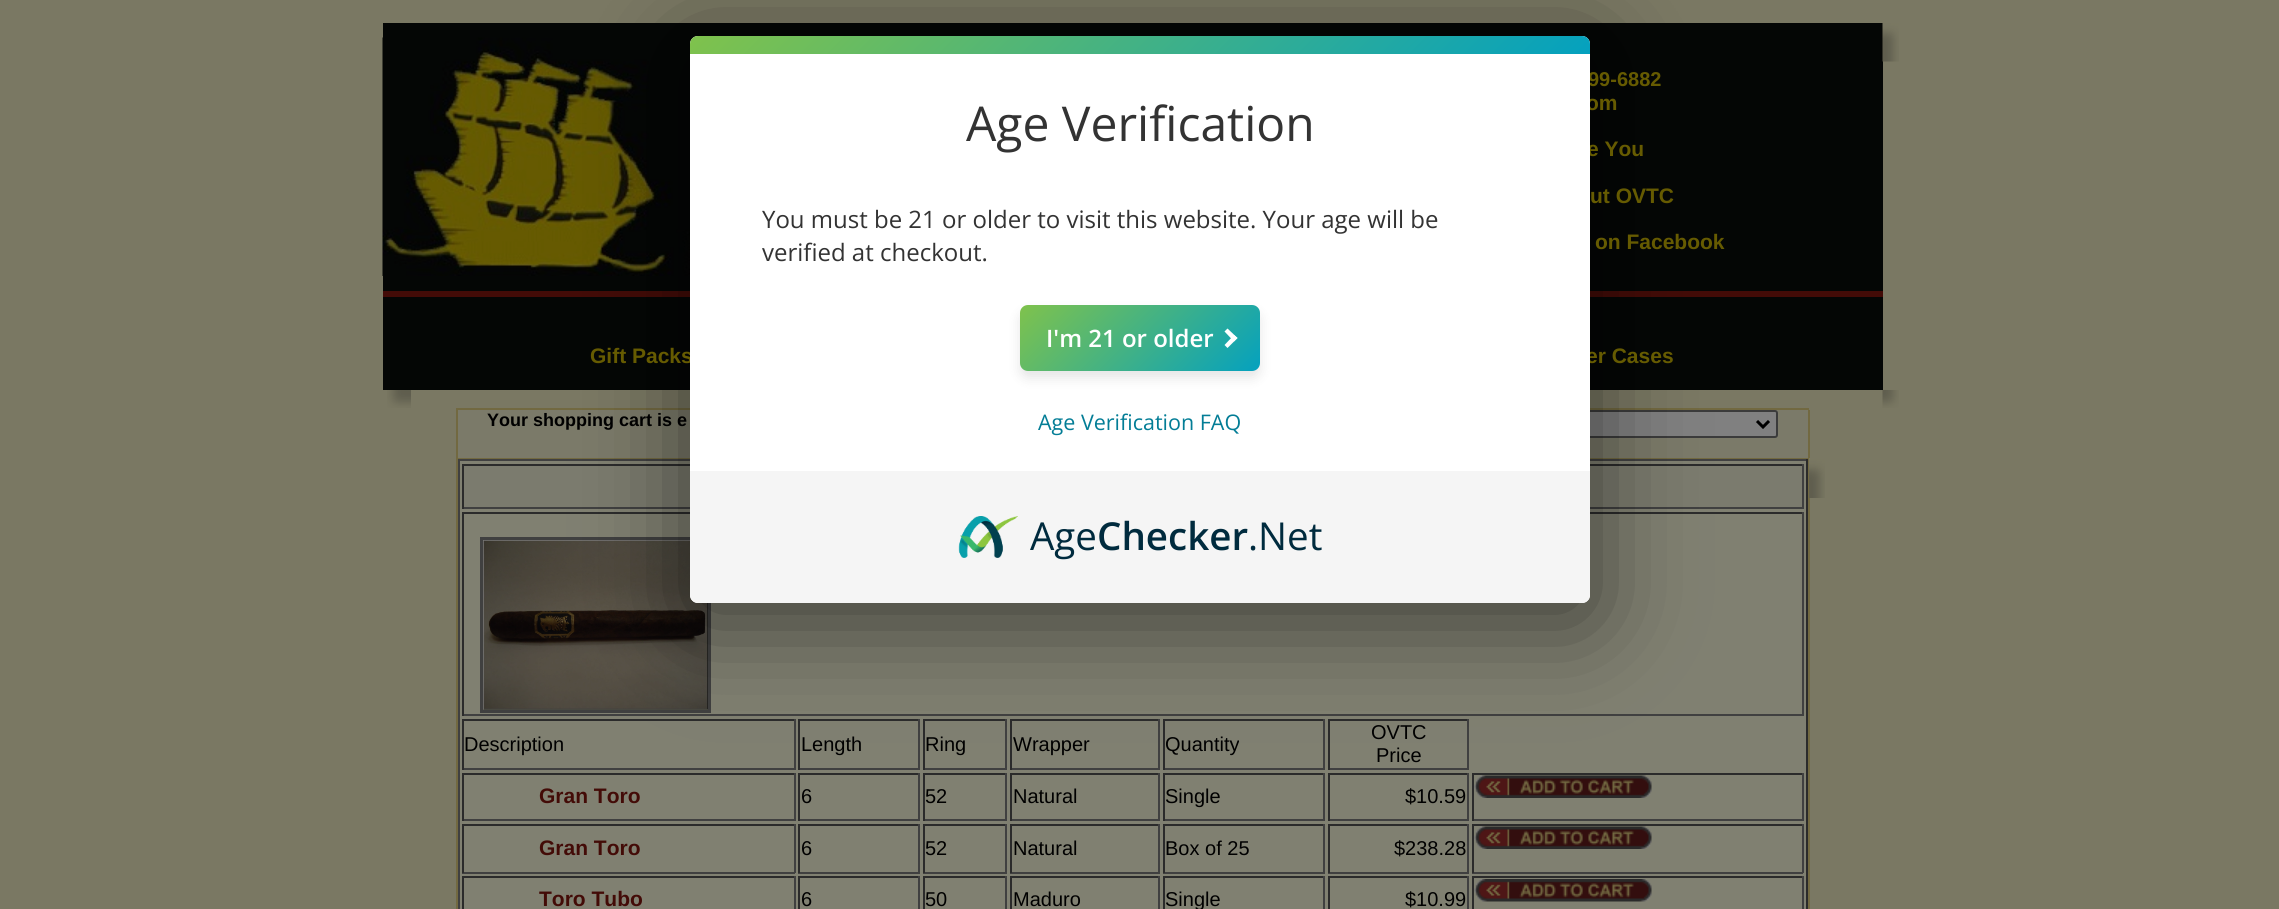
#include <cairo/cairo.h>
#include <math.h>
#include <stddef.h>

static cairo_t *cr;

static void use_color(int r, int g, int b) {
  cairo_set_source_rgb(cr, r / 255.0, g / 255.0, b / 255.0);
}

static void text(double x, double y, const char *s, const char *family, double size, int italic, int bold, int r, int g, int b) {
  cairo_select_font_face(cr, family, italic ? CAIRO_FONT_SLANT_ITALIC : CAIRO_FONT_SLANT_NORMAL,
    bold ? CAIRO_FONT_WEIGHT_BOLD : CAIRO_FONT_WEIGHT_NORMAL);
  cairo_set_font_size(cr, size);
  use_color(r, g, b);
  cairo_move_to(cr, x, y);
  cairo_show_text(cr, s);
}

static void box(double x, double y, double w, double h, int r, int g, int b) {
  use_color(r, g, b);
  cairo_rectangle(cr, x, y, w, h);
  cairo_fill(cr);
}

static void round_rect(double x, double y, double w, double h, double r) {
  cairo_new_sub_path(cr);
  cairo_arc(cr, x + w - r, y + h - r, r, 0, M_PI / 2);
  cairo_arc(cr, x + r, y + h - r, r, M_PI / 2, M_PI);
  cairo_arc(cr, x + r, y + r, r, M_PI, 1.5 * M_PI);
  cairo_arc(cr, x + w - r, y + r, r, 1.5 * M_PI, 2 * M_PI);
  cairo_close_path(cr);
}

static void shadow(double x, double y, double w, double h, double r, double blur, double alpha) {
  cairo_push_group_with_content(cr, CAIRO_CONTENT_ALPHA);
  cairo_set_operator(cr, CAIRO_OPERATOR_SOURCE);
  for (int i = 15; i >= -15 && fmin(w, h) + blur * i / 3 > 0; i -= 2) {
    double e = blur * i / 6;
    cairo_set_source_rgba(cr, 0, 0, 0, alpha * erfc((i - 1) / 8.5) / 2);
    round_rect(x - e, y - e, w + 2 * e, h + 2 * e, fmax(0, fmin(r + e + blur * .6, fmin(w, h) / 2 + e)));
    cairo_fill(cr);
  }
  cairo_pattern_t *soft = cairo_pop_group(cr);
  cairo_mask(cr, soft);
  cairo_pattern_destroy(soft);
}

static void picture(const char *path, double x, double y, double w, double h) {
  cairo_surface_t *image = cairo_image_surface_create_from_png(path);
  cairo_save(cr);
  cairo_set_source_surface(cr, image, x, y);
  cairo_rectangle(cr, x, y, w, h);
  cairo_fill(cr);
  cairo_restore(cr);
  cairo_surface_destroy(image);
}

static void draw(void) {
  cairo_pattern_t *gradient;
  use_color(122, 120, 99);
  cairo_paint(cr);
  box(383, 23, 1500, 268, 4, 6, 5);
  picture("img_01.png", 1882, 23, 17, 39);
  picture("img_02.png", 382, 37, 313, 239);
  box(383, 291, 1500, 6, 67, 11, 7);
  box(383, 297, 1500, 93, 4, 6, 5);
  picture("img_03.png", 387, 390, 24, 18);
  picture("img_04.png", 1882, 390, 17, 18);
  box(456, 408, 1353, 2, 114, 105, 65);
  box(456, 410, 2, 48, 114, 105, 65);
  box(458, 410, 1350, 48, 123, 122, 105);
  use_color(128, 128, 128);
  round_rect(1161, 411, 616, 26, 2);
  cairo_fill_preserve(cr);
  use_color(59, 59, 59);
  cairo_stroke(cr);
  cairo_new_path(cr);
  cairo_move_to(cr, 1757, 421);
  cairo_line_to(cr, 1763, 427);
  cairo_line_to(cr, 1769, 421);
  use_color(0, 0, 0);
  cairo_set_line_width(cr, 3);
  cairo_stroke(cr);
  box(1808, 410, 2, 48, 114, 105, 65);
  box(456, 458, 1353, 1, 114, 105, 65);
  box(456, 459, 2, 450, 114, 105, 65);
  box(1808, 459, 2, 450, 114, 105, 65);
  picture("img_05.png", 1809, 459, 16, 39);
  box(460, 461, 1346, 448, 128, 128, 113);
  box(458, 459, 1350, 2, 64, 64, 64);
  box(1806, 459, 2, 450, 43, 43, 43);
  box(458, 459, 2, 450, 64, 64, 64);
  box(464, 466, 1338, 41, 123, 123, 110);
  box(462, 464, 1341, 2, 43, 43, 43);
  box(1802, 464, 2, 45, 64, 64, 64);
  box(462, 507, 1341, 2, 64, 64, 64);
  box(462, 464, 2, 45, 43, 43, 43);
  box(462, 512, 1341, 2, 43, 43, 43);
  box(1802, 512, 2, 204, 64, 64, 64);
  box(462, 714, 1341, 2, 64, 64, 64);
  box(462, 512, 2, 204, 43, 43, 43);
  cairo_rectangle(cr, 481.5, 538.5, 228, 173);
  use_color(64, 64, 64);
  cairo_stroke(cr);
  picture("img_06.png", 483, 540, 225, 170);
  box(462, 719, 333, 2, 43, 43, 43);
  box(794, 719, 2, 51, 64, 64, 64);
  box(462, 768, 333, 2, 64, 64, 64);
  box(462, 719, 2, 51, 43, 43, 43);
  box(798, 719, 122, 2, 43, 43, 43);
  box(918, 719, 2, 51, 64, 64, 64);
  box(798, 768, 122, 2, 64, 64, 64);
  box(798, 719, 2, 51, 43, 43, 43);
  box(923, 719, 84, 2, 43, 43, 43);
  box(1005, 719, 2, 51, 64, 64, 64);
  box(923, 768, 84, 2, 64, 64, 64);
  box(923, 719, 2, 51, 43, 43, 43);
  box(1010, 719, 150, 2, 43, 43, 43);
  box(1158, 719, 2, 51, 64, 64, 64);
  box(1010, 768, 150, 2, 64, 64, 64);
  box(1010, 719, 2, 51, 43, 43, 43);
  box(1163, 719, 162, 2, 43, 43, 43);
  box(1323, 719, 2, 51, 64, 64, 64);
  box(1163, 768, 162, 2, 64, 64, 64);
  box(1163, 719, 2, 51, 43, 43, 43);
  box(1328, 719, 141, 2, 43, 43, 43);
  box(1467, 719, 2, 51, 64, 64, 64);
  box(1328, 768, 141, 2, 64, 64, 64);
  box(1328, 719, 2, 51, 43, 43, 43);
  box(462, 773, 333, 2, 43, 43, 43);
  box(794, 773, 2, 48, 64, 64, 64);
  box(462, 819, 333, 2, 64, 64, 64);
  box(462, 773, 2, 48, 43, 43, 43);
  box(798, 773, 122, 2, 43, 43, 43);
  box(918, 773, 2, 48, 64, 64, 64);
  box(798, 819, 122, 2, 64, 64, 64);
  box(798, 773, 2, 48, 43, 43, 43);
  box(923, 773, 84, 2, 43, 43, 43);
  box(1005, 773, 2, 48, 64, 64, 64);
  box(923, 819, 84, 2, 64, 64, 64);
  box(923, 773, 2, 48, 43, 43, 43);
  box(1010, 773, 150, 2, 43, 43, 43);
  box(1158, 773, 2, 48, 64, 64, 64);
  box(1010, 819, 150, 2, 64, 64, 64);
  box(1010, 773, 2, 48, 43, 43, 43);
  box(1163, 773, 162, 2, 43, 43, 43);
  box(1323, 773, 2, 48, 64, 64, 64);
  box(1163, 819, 162, 2, 64, 64, 64);
  box(1163, 773, 2, 48, 43, 43, 43);
  box(1328, 773, 141, 2, 43, 43, 43);
  box(1467, 773, 2, 48, 64, 64, 64);
  box(1328, 819, 141, 2, 64, 64, 64);
  box(1328, 773, 2, 48, 43, 43, 43);
  box(1472, 773, 331, 2, 43, 43, 43);
  box(1802, 773, 2, 48, 64, 64, 64);
  box(1472, 819, 331, 2, 64, 64, 64);
  box(1472, 773, 2, 48, 43, 43, 43);
  picture("img_07.png", 1474, 775, 178, 23);
  box(462, 824, 333, 2, 43, 43, 43);
  box(794, 824, 2, 49, 64, 64, 64);
  box(462, 872, 333, 2, 64, 64, 64);
  box(462, 824, 2, 49, 43, 43, 43);
  box(798, 824, 122, 2, 43, 43, 43);
  box(918, 824, 2, 49, 64, 64, 64);
  box(798, 872, 122, 2, 64, 64, 64);
  box(798, 824, 2, 49, 43, 43, 43);
  box(923, 824, 84, 2, 43, 43, 43);
  box(1005, 824, 2, 49, 64, 64, 64);
  box(923, 872, 84, 2, 64, 64, 64);
  box(923, 824, 2, 49, 43, 43, 43);
  box(1010, 824, 150, 2, 43, 43, 43);
  box(1158, 824, 2, 49, 64, 64, 64);
  box(1010, 872, 150, 2, 64, 64, 64);
  box(1010, 824, 2, 49, 43, 43, 43);
  box(1163, 824, 162, 2, 43, 43, 43);
  box(1323, 824, 2, 49, 64, 64, 64);
  box(1163, 872, 162, 2, 64, 64, 64);
  box(1163, 824, 2, 49, 43, 43, 43);
  box(1328, 824, 141, 2, 43, 43, 43);
  box(1467, 824, 2, 49, 64, 64, 64);
  box(1328, 872, 141, 2, 64, 64, 64);
  box(1328, 824, 2, 49, 43, 43, 43);
  box(1472, 824, 331, 2, 43, 43, 43);
  box(1802, 824, 2, 49, 64, 64, 64);
  box(1472, 872, 331, 2, 64, 64, 64);
  box(1472, 824, 2, 49, 43, 43, 43);
  picture("img_07.png", 1474, 826, 178, 23);
  box(462, 876, 333, 2, 43, 43, 43);
  box(794, 876, 2, 33, 64, 64, 64);
  box(462, 876, 2, 33, 43, 43, 43);
  box(798, 876, 122, 2, 43, 43, 43);
  box(918, 876, 2, 33, 64, 64, 64);
  box(798, 876, 2, 33, 43, 43, 43);
  box(923, 876, 84, 2, 43, 43, 43);
  box(1005, 876, 2, 33, 64, 64, 64);
  box(923, 876, 2, 33, 43, 43, 43);
  box(1010, 876, 150, 2, 43, 43, 43);
  box(1158, 876, 2, 33, 64, 64, 64);
  box(1010, 876, 2, 33, 43, 43, 43);
  box(1163, 876, 162, 2, 43, 43, 43);
  box(1323, 876, 2, 33, 64, 64, 64);
  box(1163, 876, 2, 33, 43, 43, 43);
  box(1328, 876, 141, 2, 43, 43, 43);
  box(1467, 876, 2, 33, 64, 64, 64);
  box(1328, 876, 2, 33, 43, 43, 43);
  box(1472, 876, 331, 2, 43, 43, 43);
  box(1802, 876, 2, 33, 64, 64, 64);
  box(1472, 876, 2, 33, 43, 43, 43);
  picture("img_08.png", 1474, 879, 178, 23);
  use_color(0, 0, 0);
  shadow(686, 47, 909, 576, 12, 48, 0.5);
  text(1588, 86, "99-6882", "Liberation Sans", 20, 0, 1, 102, 91, 1);
  text(1586, 110, "om", "Liberation Sans", 21, 0, 1, 102, 91, 1);
  text(1587, 156, "e You", "Liberation Sans", 21, 0, 1, 102, 91, 1);
  text(1590, 203, "ut OVTC", "Liberation Sans", 21, 0, 1, 102, 91, 1);
  text(1595, 249, "on Facebook", "Liberation Sans", 21, 0, 1, 102, 91, 1);
  text(590, 363, "Gift Packs", "Liberation Sans", 21, 0, 1, 102, 91, 1);
  text(1586, 363, "er Cases", "Liberation Sans", 21, 0, 1, 102, 91, 1);
  text(487, 426, "Your shopping cart is e", "Liberation Sans", 18, 0, 1, 0, 0, 0);
  text(464, 751, "Description", "Liberation Sans", 20, 0, 0, 0, 0, 0);
  text(801, 751, "Length", "Liberation Sans", 20, 0, 0, 0, 0, 0);
  text(925, 751, "Ring", "Liberation Sans", 20, 0, 0, 0, 0, 0);
  text(1013, 751, "Wrapper", "Liberation Sans", 20, 0, 0, 0, 0, 0);
  text(1165, 751, "Quantity", "Liberation Sans", 20, 0, 0, 0, 0, 0);
  text(1371, 739, "OVTC", "Liberation Sans", 20, 0, 0, 0, 0, 0);
  text(1376, 762, "Price", "Liberation Sans", 20, 0, 0, 0, 0, 0);
  text(539, 803, "Gran Toro", "Liberation Sans", 21, 0, 1, 67, 11, 7);
  text(801, 803, "6", "Liberation Sans", 20, 0, 0, 0, 0, 0);
  text(925, 803, "52", "Liberation Sans", 20, 0, 0, 0, 0, 0);
  text(1013, 803, "Natural", "Liberation Sans", 20, 0, 0, 0, 0, 0);
  text(1165, 803, "Single", "Liberation Sans", 20, 0, 0, 0, 0, 0);
  text(1405, 803, "$10.59", "Liberation Sans", 20, 0, 0, 0, 0, 0);
  text(539, 855, "Gran Toro", "Liberation Sans", 21, 0, 1, 67, 11, 7);
  text(801, 855, "6", "Liberation Sans", 20, 0, 0, 0, 0, 0);
  text(925, 855, "52", "Liberation Sans", 20, 0, 0, 0, 0, 0);
  text(1013, 855, "Natural", "Liberation Sans", 20, 0, 0, 0, 0, 0);
  text(1165, 855, "Box of 25", "Liberation Sans", 20, 0, 0, 0, 0, 0);
  text(1394, 855, "$238.28", "Liberation Sans", 20, 0, 0, 0, 0, 0);
  text(539, 906, "Toro Tubo", "Liberation Sans", 21, 0, 1, 67, 11, 7);
  text(801, 906, "6", "Liberation Sans", 20, 0, 0, 0, 0, 0);
  text(925, 906, "50", "Liberation Sans", 20, 0, 0, 0, 0, 0);
  text(1013, 906, "Maduro", "Liberation Sans", 20, 0, 0, 0, 0, 0);
  text(1165, 906, "Single", "Liberation Sans", 20, 0, 0, 0, 0, 0);
  text(1405, 906, "$10.99", "Liberation Sans", 20, 0, 0, 0, 0, 0);
  use_color(255, 255, 255);
  round_rect(690, 36, 900, 567, 8);
  cairo_fill(cr);
  gradient = cairo_pattern_create_linear(911, -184, 1370, 275);
  cairo_pattern_add_color_stop_rgba(gradient, 0, 0.498, 0.761, 0.298, 1);
  cairo_pattern_add_color_stop_rgba(gradient, 1, 0.016, 0.631, 0.749, 1);
  cairo_set_source(cr, gradient);
  cairo_pattern_destroy(gradient);
  cairo_new_path(cr);
  cairo_move_to(cr, 698, 36);
  cairo_line_to(cr, 1582, 36);
  cairo_curve_to(cr, 1586.5, 36, 1590, 39.5, 1590, 44);
  cairo_line_to(cr, 1590, 54);
  cairo_line_to(cr, 690, 54);
  cairo_line_to(cr, 690, 44);
  cairo_curve_to(cr, 690, 39.5, 693.5, 36, 698, 36);
  cairo_close_path(cr);
  cairo_fill(cr);
  text(966, 141, "Age Verification", "Open Sans", 48, 0, 0, 51, 51, 51);
  text(762, 228, "You must be 21 or older to visit this website. Your age will be", "Open Sans", 24, 0, 0, 51, 51, 51);
  text(762, 261, "verified at checkout.", "Open Sans", 24, 0, 0, 51, 51, 51);
  use_color(0, 0, 0);
  shadow(1020, 312, 240, 66, 8, 6, 0.1);
  gradient = cairo_pattern_create_linear(1064, 261, 1217, 414);
  cairo_pattern_add_color_stop_rgba(gradient, 0, 0.498, 0.761, 0.298, 1);
  cairo_pattern_add_color_stop_rgba(gradient, 1, 0.016, 0.631, 0.749, 1);
  cairo_set_source(cr, gradient);
  cairo_pattern_destroy(gradient);
  round_rect(1020, 305, 240, 66, 8);
  cairo_fill(cr);
  text(1046, 347, "I'm 21 or older", "Open Sans SemiBold", 24, 0, 0, 255, 255, 255);
  cairo_new_path(cr);
  cairo_move_to(cr, 1224.5, 331.5);
  cairo_line_to(cr, 1227.5, 328.5);
  cairo_line_to(cr, 1237.5, 338);
  cairo_line_to(cr, 1234, 341.5);
  cairo_close_path(cr);
  cairo_fill(cr);
  cairo_new_path(cr);
  cairo_move_to(cr, 1224.5, 345);
  cairo_line_to(cr, 1234, 335);
  cairo_line_to(cr, 1237.5, 338);
  cairo_line_to(cr, 1227.5, 348);
  cairo_close_path(cr);
  cairo_fill(cr);
  text(1038, 430, "Age Verification FAQ", "Open Sans", 21.5, 0, 0, 3, 125, 150);
  use_color(245, 245, 245);
  cairo_new_path(cr);
  cairo_move_to(cr, 690, 471);
  cairo_line_to(cr, 1590, 471);
  cairo_line_to(cr, 1590, 595);
  cairo_curve_to(cr, 1590, 599.5, 1586.5, 603, 1582, 603);
  cairo_line_to(cr, 698, 603);
  cairo_curve_to(cr, 693.5, 603, 690, 599.5, 690, 595);
  cairo_close_path(cr);
  cairo_fill(cr);
  picture("img_09.png", 958, 516, 60, 42);
  text(1030, 550, "Age", "Open Sans", 38.5, 0, 0, 0, 43, 62);
  text(1097, 550, "Checker", "Open Sans SemiBold", 38.5, 0, 0, 0, 43, 62);
  text(1248, 550, ".Net", "Open Sans", 38.5, 0, 0, 0, 43, 62);
}

int main(void) {
  cairo_surface_t *surface = cairo_image_surface_create(CAIRO_FORMAT_RGB24, 2279, 909);
  cr = cairo_create(surface);
  cairo_font_options_t *options = cairo_font_options_create();
  cairo_font_options_set_hint_metrics(options, CAIRO_HINT_METRICS_OFF);
  cairo_font_options_set_hint_style(options, CAIRO_HINT_STYLE_NONE);
  cairo_set_font_options(cr, options);
  cairo_set_miter_limit(cr, 4);
  draw();
  cairo_surface_write_to_png(surface, "out.png");
  cairo_font_options_destroy(options);
  cairo_destroy(cr);
  cairo_surface_destroy(surface);
  return 0;
}
